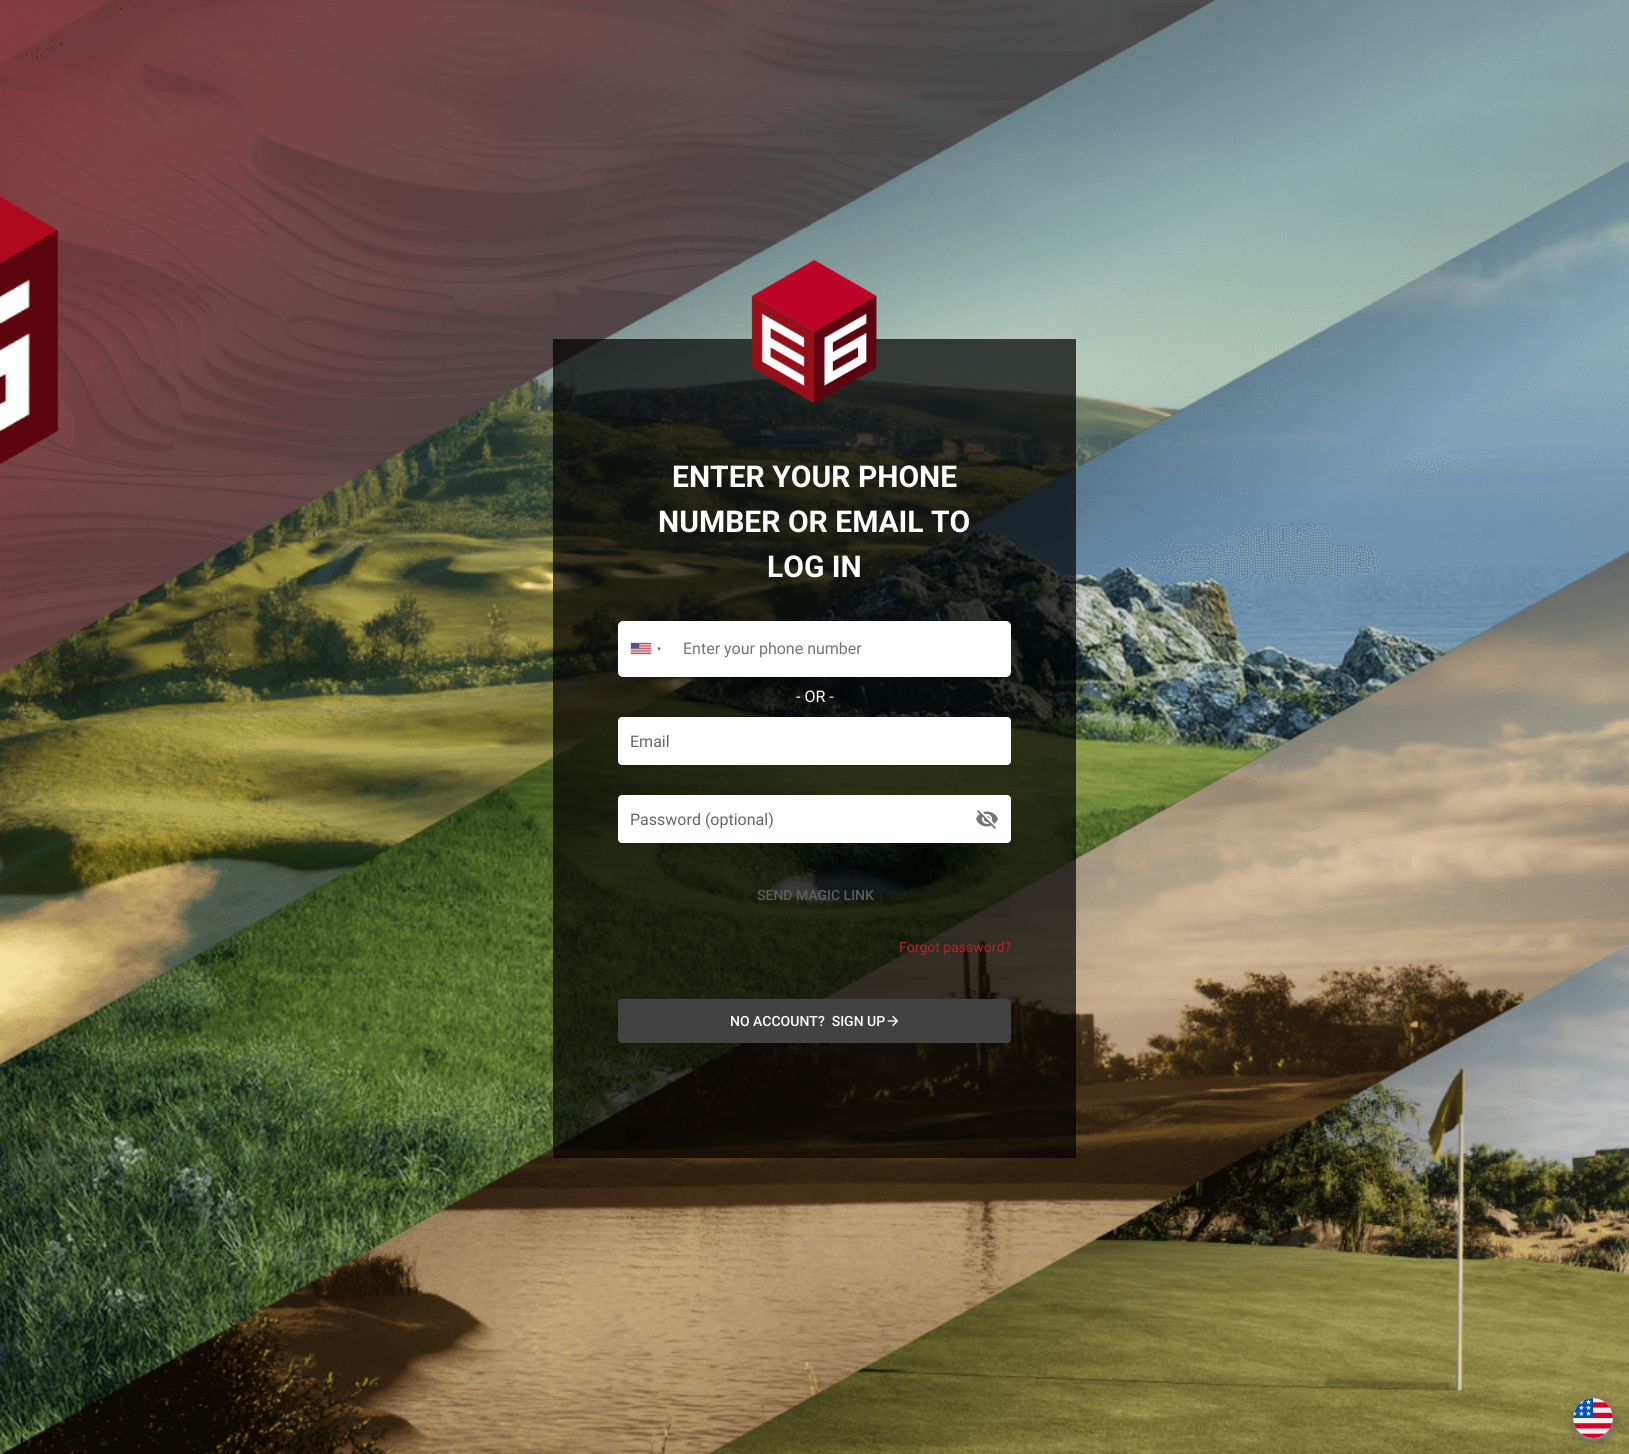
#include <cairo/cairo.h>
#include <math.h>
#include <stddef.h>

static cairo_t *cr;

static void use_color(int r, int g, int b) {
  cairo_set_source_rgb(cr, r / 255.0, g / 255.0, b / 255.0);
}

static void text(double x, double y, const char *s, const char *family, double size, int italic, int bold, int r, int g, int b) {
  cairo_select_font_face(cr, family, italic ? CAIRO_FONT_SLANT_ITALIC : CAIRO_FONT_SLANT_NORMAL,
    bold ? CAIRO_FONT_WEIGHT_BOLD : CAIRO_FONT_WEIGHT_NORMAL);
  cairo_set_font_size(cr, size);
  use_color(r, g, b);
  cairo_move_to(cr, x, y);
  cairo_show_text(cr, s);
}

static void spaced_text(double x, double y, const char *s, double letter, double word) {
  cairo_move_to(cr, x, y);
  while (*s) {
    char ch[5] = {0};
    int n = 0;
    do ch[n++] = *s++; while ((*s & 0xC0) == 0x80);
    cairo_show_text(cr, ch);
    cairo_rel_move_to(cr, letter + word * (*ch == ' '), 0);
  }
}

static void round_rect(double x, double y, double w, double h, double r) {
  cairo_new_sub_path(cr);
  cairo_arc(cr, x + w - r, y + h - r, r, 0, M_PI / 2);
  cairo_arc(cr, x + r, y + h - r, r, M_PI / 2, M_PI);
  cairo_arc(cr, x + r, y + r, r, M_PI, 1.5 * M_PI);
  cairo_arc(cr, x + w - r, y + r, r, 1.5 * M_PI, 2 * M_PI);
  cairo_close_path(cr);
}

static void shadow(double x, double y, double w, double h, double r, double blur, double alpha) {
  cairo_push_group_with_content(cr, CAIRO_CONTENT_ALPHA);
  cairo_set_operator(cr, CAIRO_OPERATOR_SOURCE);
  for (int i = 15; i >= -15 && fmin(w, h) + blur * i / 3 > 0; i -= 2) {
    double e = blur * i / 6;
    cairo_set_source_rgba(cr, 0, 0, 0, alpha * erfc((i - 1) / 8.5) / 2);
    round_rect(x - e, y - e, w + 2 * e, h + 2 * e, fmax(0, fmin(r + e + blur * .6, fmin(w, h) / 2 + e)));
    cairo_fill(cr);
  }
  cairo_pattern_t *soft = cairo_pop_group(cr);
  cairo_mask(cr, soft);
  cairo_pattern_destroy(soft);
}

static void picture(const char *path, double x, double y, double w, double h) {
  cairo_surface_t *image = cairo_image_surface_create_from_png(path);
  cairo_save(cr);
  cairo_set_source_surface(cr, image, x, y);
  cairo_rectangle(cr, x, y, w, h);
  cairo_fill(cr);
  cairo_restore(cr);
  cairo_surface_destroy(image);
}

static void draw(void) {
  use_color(255, 255, 255);
  cairo_paint(cr);
  picture("img_01.png", 0, 0, 1629, 1454);
  cairo_set_source_rgba(cr, 0, 0, 0, 0.7);
  cairo_rectangle(cr, 553, 339, 523, 819);
  cairo_fill(cr);
  picture("img_02.png", 751, 259, 126, 145);
  use_color(0, 0, 0);
  shadow(620, 626, 389, 52, 3, 0.5, 0.2);
  use_color(255, 255, 255);
  round_rect(618, 621, 393, 56, 5);
  cairo_fill(cr);
  use_color(136, 136, 136);
  shadow(631, 643, 20, 11, 0, 0.5, 1);
  picture("img_03.png", 631, 643, 20, 11);
  use_color(0, 0, 0);
  shadow(620, 722, 389, 44, 2, 0.5, 0.2);
  use_color(255, 255, 255);
  round_rect(618, 717, 393, 48, 4);
  cairo_fill(cr);
  round_rect(618, 795, 393, 48, 4);
  cairo_fill(cr);
  picture("img_04.png", 976, 810, 22, 19);
  cairo_set_source_rgba(cr, 0, 0, 0, 0.06);
  cairo_rectangle(cr, 634, 874, 377, 43);
  cairo_fill(cr);
  cairo_set_source_rgba(cr, 0, 0, 0, 0.12);
  cairo_rectangle(cr, 618, 978, 393, 1);
  cairo_fill(cr);
  use_color(0, 0, 0);
  shadow(620, 1004, 389, 40, 2, 0.5, 0.2);
  use_color(66, 66, 66);
  round_rect(618, 999, 393, 44, 4);
  cairo_fill(cr);
  picture("img_05.png", 887, 1015, 12, 12);
  use_color(0, 0, 0);
  shadow(1573, 1399, 40, 40, 20, 9, 0.12);
  shadow(1573, 1404, 40, 40, 20, 5, 0.14);
  shadow(1574, 1402, 38, 38, 19, 2.5, 0.2);
  use_color(130, 130, 130);
  shadow(1573, 1401, 40, 40, 20, 1.5, 1);
  picture("img_06.png", 1573, 1398, 40, 40);
  text(672, 487, "ENTER YOUR PHONE", "Roboto", 30, 0, 1, 255, 255, 255);
  text(658, 532, "NUMBER OR EMAIL TO", "Roboto", 30, 0, 1, 255, 255, 255);
  text(767, 577, "LOG IN", "Roboto", 30, 0, 1, 255, 255, 255);
  cairo_select_font_face(cr, "Liberation Sans", CAIRO_FONT_SLANT_NORMAL, CAIRO_FONT_WEIGHT_NORMAL);
  cairo_set_font_size(cr, 6);
  use_color(102, 102, 102);
  spaced_text(656, 651, "▼", 6, 0);
  text(683, 654, "Enter your phone number", "Roboto", 16, 0, 0, 117, 117, 117);
  text(796, 702, "- OR -", "Roboto", 16, 0, 0, 255, 255, 255);
  text(630, 747, "Email", "Roboto", 16, 0, 0, 102, 102, 102);
  text(630, 825, "Password (optional)", "Roboto", 16, 0, 0, 102, 102, 102);
  text(757, 900, "SEND MAGIC LINK", "Roboto Medium", 14, 0, 0, 90, 93, 89);
  text(899, 952, "Forgot password?", "Roboto", 14, 0, 0, 186, 33, 39);
  text(730, 1026, "NO ACCOUNT?  SIGN UP", "Roboto Medium", 14, 0, 0, 255, 255, 255);
}

int main(void) {
  cairo_surface_t *surface = cairo_image_surface_create(CAIRO_FORMAT_RGB24, 1629, 1454);
  cr = cairo_create(surface);
  cairo_font_options_t *options = cairo_font_options_create();
  cairo_font_options_set_hint_metrics(options, CAIRO_HINT_METRICS_OFF);
  cairo_font_options_set_hint_style(options, CAIRO_HINT_STYLE_NONE);
  cairo_set_font_options(cr, options);
  cairo_set_miter_limit(cr, 4);
  draw();
  cairo_surface_write_to_png(surface, "out.png");
  cairo_font_options_destroy(options);
  cairo_destroy(cr);
  cairo_surface_destroy(surface);
  return 0;
}
